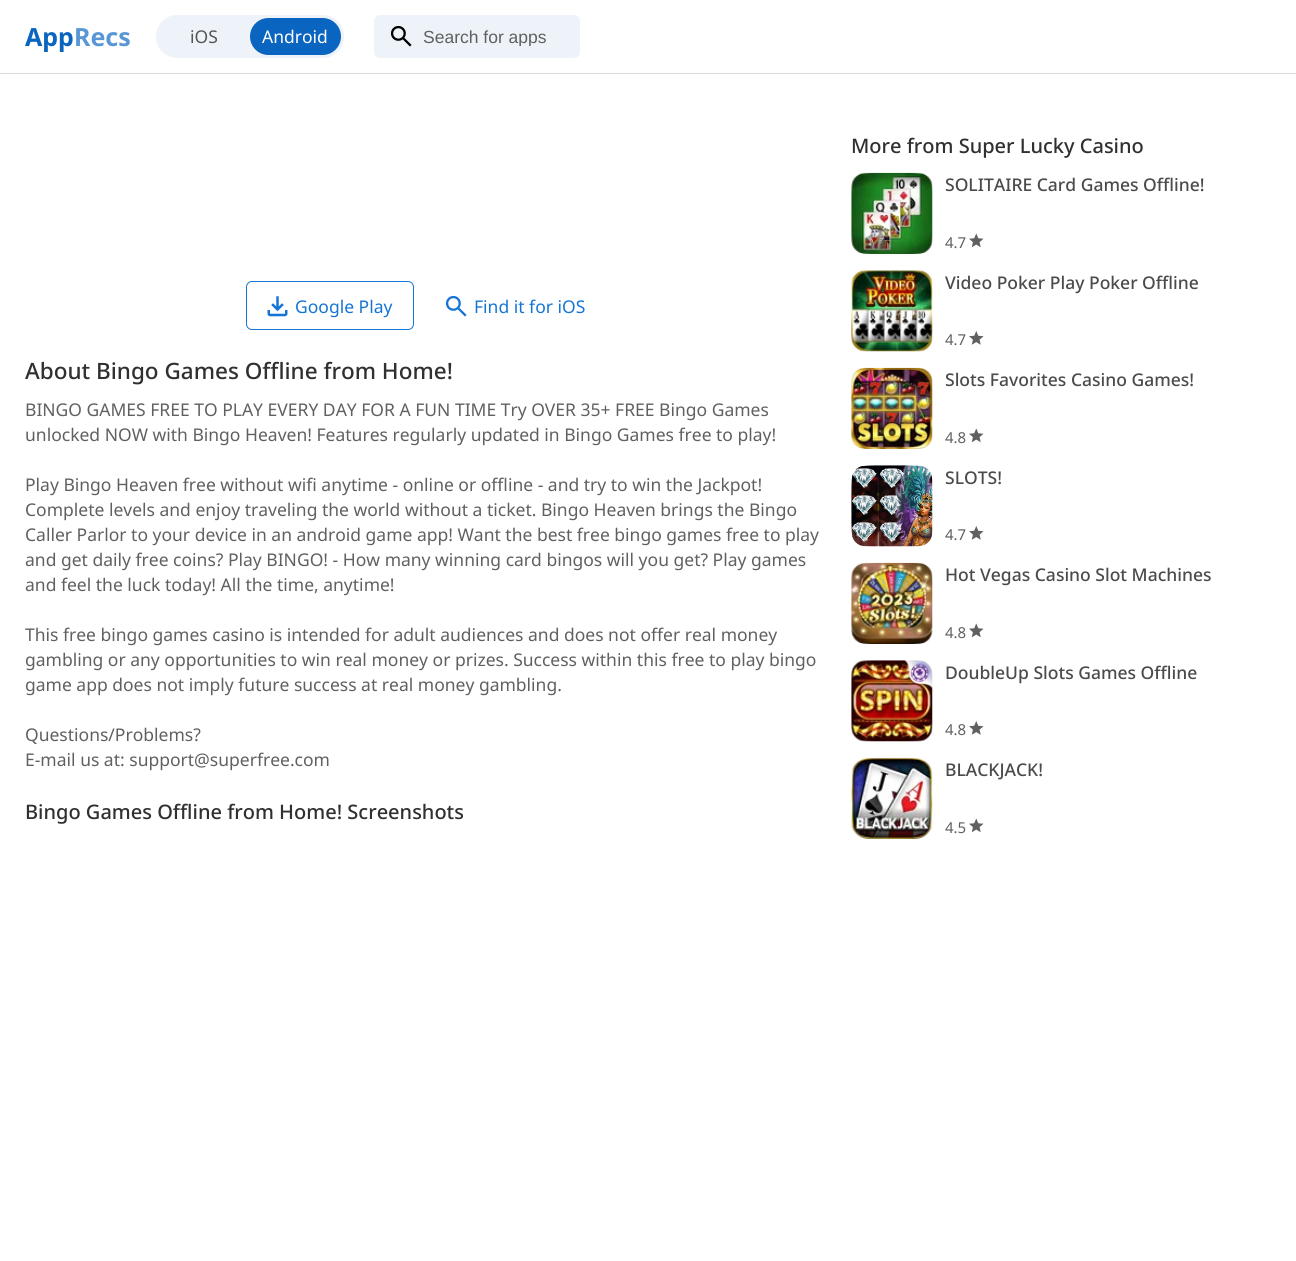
#include <cairo/cairo.h>
#include <math.h>
#include <stddef.h>

static cairo_t *cr;

static void use_color(int r, int g, int b) {
  cairo_set_source_rgb(cr, r / 255.0, g / 255.0, b / 255.0);
}

static void text(double x, double y, const char *s, const char *family, double size, int italic, int bold, int r, int g, int b) {
  cairo_select_font_face(cr, family, italic ? CAIRO_FONT_SLANT_ITALIC : CAIRO_FONT_SLANT_NORMAL,
    bold ? CAIRO_FONT_WEIGHT_BOLD : CAIRO_FONT_WEIGHT_NORMAL);
  cairo_set_font_size(cr, size);
  use_color(r, g, b);
  cairo_move_to(cr, x, y);
  cairo_show_text(cr, s);
}

static void box(double x, double y, double w, double h, int r, int g, int b) {
  use_color(r, g, b);
  cairo_rectangle(cr, x, y, w, h);
  cairo_fill(cr);
}

static void round_rect(double x, double y, double w, double h, double r) {
  cairo_new_sub_path(cr);
  cairo_arc(cr, x + w - r, y + h - r, r, 0, M_PI / 2);
  cairo_arc(cr, x + r, y + h - r, r, M_PI / 2, M_PI);
  cairo_arc(cr, x + r, y + r, r, M_PI, 1.5 * M_PI);
  cairo_arc(cr, x + w - r, y + r, r, 1.5 * M_PI, 2 * M_PI);
  cairo_close_path(cr);
}

static void picture(const char *path, double x, double y, double w, double h) {
  cairo_surface_t *image = cairo_image_surface_create_from_png(path);
  cairo_save(cr);
  cairo_set_source_surface(cr, image, x, y);
  cairo_rectangle(cr, x, y, w, h);
  cairo_fill(cr);
  cairo_restore(cr);
  cairo_surface_destroy(image);
}

static void draw(void) {
  use_color(255, 255, 255);
  cairo_paint(cr);
  box(0, 73, 1296, 1, 218, 218, 218);
  use_color(237, 243, 248);
  cairo_new_path(cr);
  cairo_move_to(cr, 177.5, 15);
  cairo_line_to(cr, 248, 15);
  cairo_line_to(cr, 248, 58);
  cairo_line_to(cr, 177.5, 58);
  cairo_curve_to(cr, 165.5, 58, 156, 48.5, 156, 36.5);
  cairo_curve_to(cr, 156, 24.5, 165.5, 15, 177.5, 15);
  cairo_close_path(cr);
  cairo_fill(cr);
  cairo_new_path(cr);
  cairo_move_to(cr, 248, 15);
  cairo_line_to(cr, 322.5, 15);
  cairo_curve_to(cr, 334.5, 15, 344, 24.5, 344, 36.5);
  cairo_curve_to(cr, 344, 48.5, 334.5, 58, 322.5, 58);
  cairo_line_to(cr, 248, 58);
  cairo_close_path(cr);
  cairo_fill(cr);
  use_color(10, 101, 193);
  round_rect(250, 18, 91, 37, 18.5);
  cairo_fill(cr);
  use_color(237, 243, 248);
  round_rect(374, 15, 206, 43, 6);
  cairo_fill(cr);
  picture("img_01.png", 390, 25, 22, 22);
  round_rect(246.5, 281.5, 167, 48, 5.5);
  use_color(21, 117, 213);
  cairo_set_line_width(cr, 1);
  cairo_stroke(cr);
  picture("img_02.png", 267, 296, 21, 21);
  picture("img_03.png", 445, 295, 22, 22);
  picture("img_04.png", 851, 172, 82, 82);
  picture("img_05.png", 969, 233, 15, 15);
  picture("img_06.png", 851, 270, 82, 82);
  picture("img_07.png", 969, 331, 15, 14);
  picture("img_08.png", 851, 367, 82, 82);
  picture("img_05.png", 969, 428, 15, 15);
  picture("img_09.png", 851, 465, 82, 82);
  picture("img_07.png", 969, 526, 15, 14);
  picture("img_10.png", 851, 562, 82, 82);
  picture("img_05.png", 969, 623, 15, 15);
  picture("img_11.png", 851, 660, 82, 82);
  picture("img_07.png", 969, 721, 15, 14);
  picture("img_12.png", 851, 757, 82, 82);
  picture("img_05.png", 969, 818, 15, 15);
  text(25, 46, "App", "Noto Sans", 25, 0, 1, 10, 101, 193);
  text(74, 46, "Recs", "Noto Sans", 25, 0, 1, 88, 150, 213);
  text(190, 43, "iOS", "Noto Sans", 17.5, 0, 0, 85, 85, 85);
  text(262, 43, "Android", "Noto Sans", 17.5, 0, 0, 255, 255, 255);
  cairo_save(cr);
  cairo_rectangle(cr, 424, 26, 134, 20);
  cairo_clip(cr);
  text(423, 43, "Search for apps", "Liberation Sans", 17.5, 0, 0, 96, 96, 96);
  cairo_restore(cr);
  text(295, 313, "Google Play", "Noto Sans", 17.5, 0, 0, 21, 117, 213);
  text(474, 313, "Find it for iOS", "Noto Sans", 17.5, 0, 0, 21, 117, 213);
  text(25, 379, "About Bingo Games Offline from Home!", "Noto Sans Medium", 22.5, 0, 0, 48, 48, 48);
  text(25, 416, "BINGO GAMES FREE TO PLAY EVERY DAY FOR A FUN TIME Try OVER 35+ FREE Bingo Games", "Noto Sans", 17.5, 0, 0, 96, 96, 96);
  text(25, 441, "unlocked NOW with Bingo Heaven! Features regularly updated in Bingo Games free to play!", "Noto Sans", 17.5, 0, 0, 96, 96, 96);
  text(25, 491, "Play Bingo Heaven free without wifi anytime - online or offline - and try to win the Jackpot!", "Noto Sans", 17.5, 0, 0, 96, 96, 96);
  text(25, 516, "Complete levels and enjoy traveling the world without a ticket. Bingo Heaven brings the Bingo", "Noto Sans", 17.5, 0, 0, 96, 96, 96);
  text(25, 541, "Caller Parlor to your device in an android game app! Want the best free bingo games free to play", "Noto Sans", 17.5, 0, 0, 96, 96, 96);
  text(25, 566, "and get daily free coins? Play BINGO! - How many winning card bingos will you get? Play games", "Noto Sans", 17.5, 0, 0, 96, 96, 96);
  text(25, 591, "and feel the luck today! All the time, anytime!", "Noto Sans", 17.5, 0, 0, 96, 96, 96);
  text(25, 641, "This free bingo games casino is intended for adult audiences and does not offer real money", "Noto Sans", 17.5, 0, 0, 96, 96, 96);
  text(25, 666, "gambling or any opportunities to win real money or prizes. Success within this free to play bingo", "Noto Sans", 17.5, 0, 0, 96, 96, 96);
  text(25, 691, "game app does not imply future success at real money gambling.", "Noto Sans", 17.5, 0, 0, 96, 96, 96);
  text(25, 741, "Questions/Problems?", "Noto Sans", 17.5, 0, 0, 96, 96, 96);
  text(25, 766, "E-mail us at: support@superfree.com", "Noto Sans", 17.5, 0, 0, 96, 96, 96);
  text(25, 819, "Bingo Games Offline from Home! Screenshots", "Noto Sans Medium", 20, 0, 0, 48, 48, 48);
  text(851, 153, "More from Super Lucky Casino", "Noto Sans Medium", 20, 0, 0, 48, 48, 48);
  text(945, 191, "SOLITAIRE Card Games Offline!", "Noto Sans Medium", 17.5, 0, 0, 75, 75, 75);
  text(945, 248, "4.7", "Noto Sans", 15, 0, 0, 96, 96, 96);
  text(945, 289, "Video Poker Play Poker Offline", "Noto Sans Medium", 17.5, 0, 0, 75, 75, 75);
  text(945, 345, "4.7", "Noto Sans", 15, 0, 0, 96, 96, 96);
  text(945, 386, "Slots Favorites Casino Games!", "Noto Sans Medium", 17.5, 0, 0, 75, 75, 75);
  text(945, 443, "4.8", "Noto Sans", 15, 0, 0, 96, 96, 96);
  text(945, 484, "SLOTS!", "Noto Sans Medium", 17.5, 0, 0, 75, 75, 75);
  text(945, 540, "4.7", "Noto Sans", 15, 0, 0, 96, 96, 96);
  text(945, 581, "Hot Vegas Casino Slot Machines", "Noto Sans Medium", 17.5, 0, 0, 75, 75, 75);
  text(945, 638, "4.8", "Noto Sans", 15, 0, 0, 96, 96, 96);
  text(945, 679, "DoubleUp Slots Games Offline", "Noto Sans Medium", 17.5, 0, 0, 75, 75, 75);
  text(945, 735, "4.8", "Noto Sans", 15, 0, 0, 96, 96, 96);
  text(945, 776, "BLACKJACK!", "Noto Sans Medium", 17.5, 0, 0, 75, 75, 75);
  text(945, 833, "4.5", "Noto Sans", 15, 0, 0, 96, 96, 96);
}

int main(void) {
  cairo_surface_t *surface = cairo_image_surface_create(CAIRO_FORMAT_RGB24, 1296, 1261);
  cr = cairo_create(surface);
  cairo_font_options_t *options = cairo_font_options_create();
  cairo_font_options_set_hint_metrics(options, CAIRO_HINT_METRICS_OFF);
  cairo_font_options_set_hint_style(options, CAIRO_HINT_STYLE_NONE);
  cairo_set_font_options(cr, options);
  cairo_set_miter_limit(cr, 4);
  draw();
  cairo_surface_write_to_png(surface, "out.png");
  cairo_font_options_destroy(options);
  cairo_destroy(cr);
  cairo_surface_destroy(surface);
  return 0;
}
